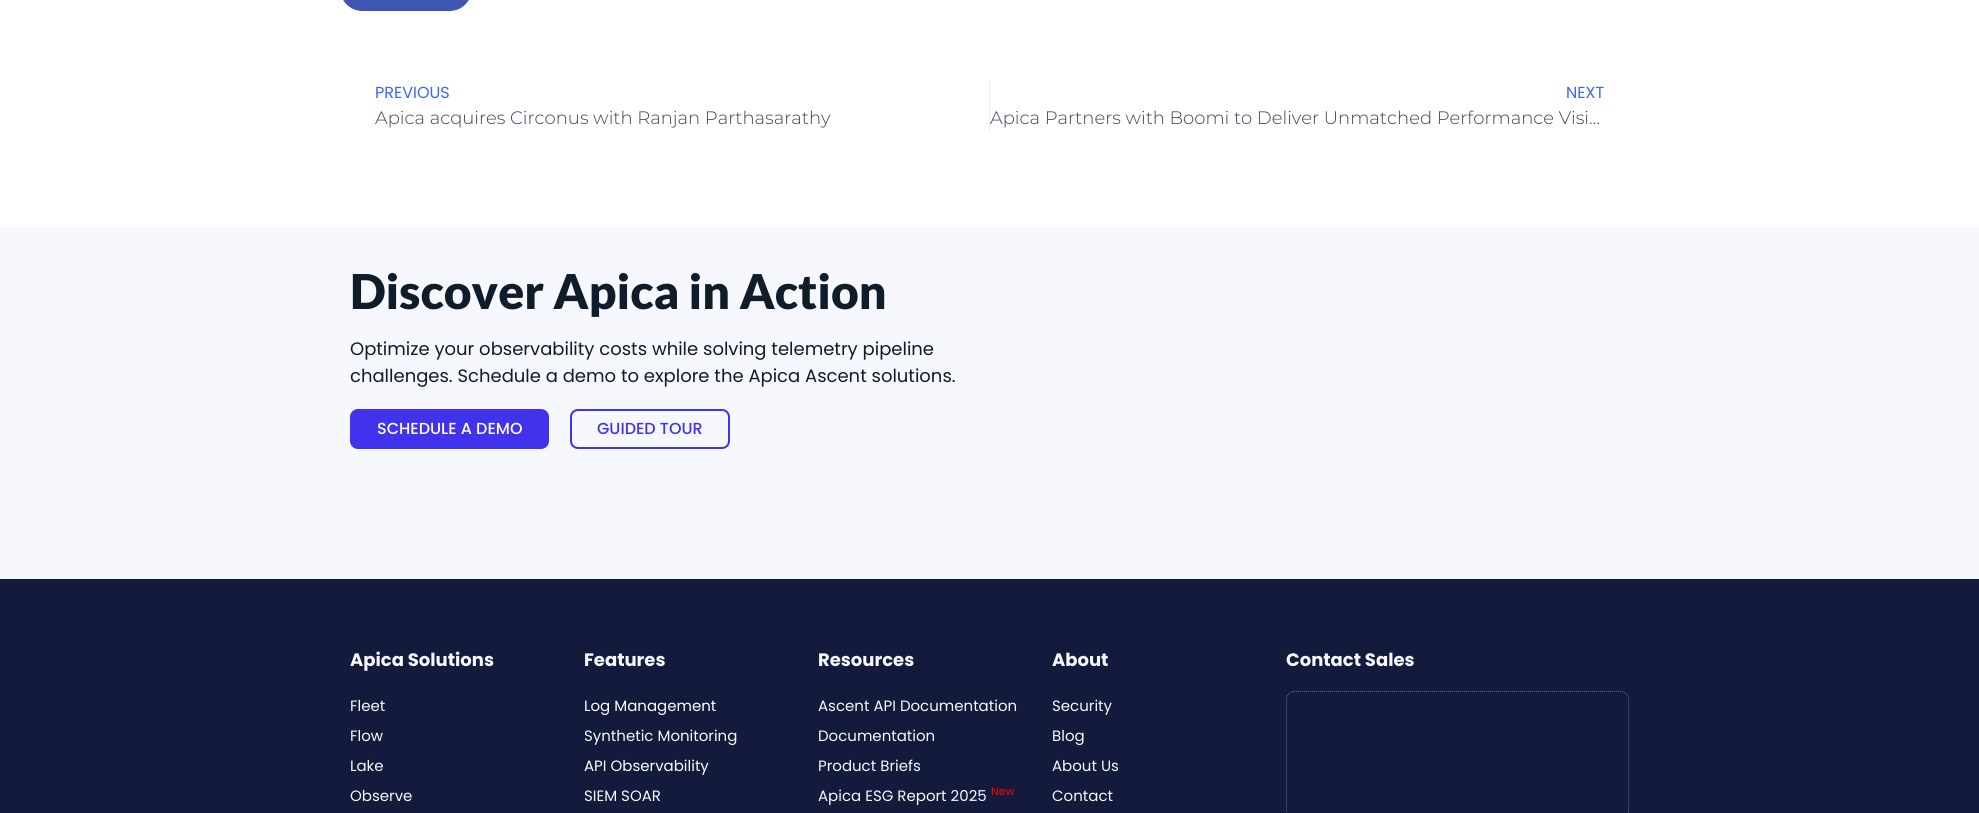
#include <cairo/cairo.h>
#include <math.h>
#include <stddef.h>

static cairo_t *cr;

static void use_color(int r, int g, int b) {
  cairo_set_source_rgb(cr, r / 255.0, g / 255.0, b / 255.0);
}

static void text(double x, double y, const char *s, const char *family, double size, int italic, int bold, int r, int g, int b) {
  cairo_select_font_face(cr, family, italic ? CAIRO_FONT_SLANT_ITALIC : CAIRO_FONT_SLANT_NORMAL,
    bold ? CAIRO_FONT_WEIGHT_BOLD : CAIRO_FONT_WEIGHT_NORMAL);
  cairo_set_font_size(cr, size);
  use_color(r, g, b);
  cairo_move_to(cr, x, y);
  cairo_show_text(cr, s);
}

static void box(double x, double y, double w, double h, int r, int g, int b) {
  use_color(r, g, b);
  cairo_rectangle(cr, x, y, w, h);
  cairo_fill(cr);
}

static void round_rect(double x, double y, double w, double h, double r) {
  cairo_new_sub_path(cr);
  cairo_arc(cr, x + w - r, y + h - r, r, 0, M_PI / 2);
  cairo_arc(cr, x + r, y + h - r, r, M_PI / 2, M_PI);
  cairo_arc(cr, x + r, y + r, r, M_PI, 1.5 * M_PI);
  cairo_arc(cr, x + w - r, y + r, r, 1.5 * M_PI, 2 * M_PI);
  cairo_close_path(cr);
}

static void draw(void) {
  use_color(255, 255, 255);
  cairo_paint(cr);
  use_color(64, 84, 178);
  round_rect(340, -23, 132, 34, 22.5);
  cairo_fill(cr);
  box(989, 81, 1, 51, 236, 237, 239);
  box(0, 227, 1979, 352, 247, 247, 254);
  use_color(65, 50, 238);
  round_rect(351, 410, 197, 38, 7);
  cairo_fill_preserve(cr);
  cairo_stroke(cr);
  round_rect(571, 410, 158, 38, 7);
  cairo_stroke(cr);
  box(0, 579, 1979, 234, 19, 26, 59);
  cairo_new_path(cr);
  cairo_move_to(cr, 1294, 691.5);
  cairo_line_to(cr, 1621, 691.5);
  cairo_curve_to(cr, 1625, 691.5, 1628.5, 695, 1628.5, 699);
  cairo_line_to(cr, 1628.5, 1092);
  cairo_curve_to(cr, 1628.5, 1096, 1625, 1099.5, 1621, 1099.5);
  cairo_line_to(cr, 1294, 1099.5);
  cairo_curve_to(cr, 1290, 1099.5, 1286.5, 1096, 1286.5, 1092);
  cairo_line_to(cr, 1286.5, 699);
  cairo_curve_to(cr, 1286.5, 695, 1290, 691.5, 1294, 691.5);
  cairo_close_path(cr);
  use_color(98, 102, 119);
  cairo_set_line_width(cr, 1);
  cairo_set_dash(cr, (double[]){1, 1}, 2, 0);
  cairo_stroke(cr);
  text(375, 98, "PREVIOUS", "Poppins", 16, 0, 0, 62, 100, 255);
  text(375, 124, "Apica acquires Circonus with Ranjan Parthasarathy", "Montserrat Light", 18, 0, 0, 61, 68, 89);
  text(1566, 98, "NEXT", "Poppins", 16, 0, 0, 62, 100, 255);
  text(990, 124, "Apica Partners with Boomi to Deliver Unmatched Performance Visi…", "Montserrat Light", 18, 0, 0, 61, 68, 89);
  text(350, 309, "Discover Apica in Action", "Lato Black", 48, 0, 0, 15, 28, 42);
  text(350, 355, "Optimize your observability costs while solving telemetry pipeline", "Poppins", 18, 0, 0, 15, 28, 42);
  text(350, 382, "challenges. Schedule a demo to explore the Apica Ascent solutions.", "Poppins", 18, 0, 0, 15, 28, 42);
  text(377, 434, "SCHEDULE A DEMO", "Poppins Medium", 16, 0, 0, 255, 255, 255);
  text(597, 434, "GUIDED TOUR", "Poppins Medium", 16, 0, 0, 65, 50, 238);
  text(350, 666, "Apica Solutions", "Poppins", 18, 0, 1, 247, 247, 254);
  text(350, 711, "Fleet", "Poppins", 15, 0, 0, 247, 247, 254);
  text(350, 741, "Flow", "Poppins", 15, 0, 0, 247, 247, 254);
  text(350, 771, "Lake", "Poppins", 15, 0, 0, 247, 247, 254);
  text(350, 801, "Observe", "Poppins", 15, 0, 0, 247, 247, 254);
  text(584, 666, "Features", "Poppins", 18, 0, 1, 247, 247, 254);
  text(584, 711, "Log Management", "Poppins", 15, 0, 0, 255, 255, 255);
  text(584, 741, "Synthetic Monitoring", "Poppins", 15, 0, 0, 247, 247, 254);
  text(584, 771, "API Observability", "Poppins", 15, 0, 0, 255, 255, 255);
  text(584, 801, "SIEM SOAR", "Poppins", 15, 0, 0, 247, 247, 254);
  text(818, 666, "Resources", "Poppins", 18, 0, 1, 247, 247, 254);
  text(818, 711, "Ascent API Documentation", "Poppins", 15, 0, 0, 247, 247, 254);
  text(818, 741, "Documentation", "Poppins", 15, 0, 0, 247, 247, 254);
  text(818, 771, "Product Briefs", "Poppins", 15, 0, 0, 247, 247, 254);
  text(818, 801, "Apica ESG Report 2025", "Poppins", 15, 0, 0, 247, 247, 254);
  text(991, 795, "New", "Poppins", 11, 0, 0, 255, 0, 0);
  text(1052, 666, "About", "Poppins", 18, 0, 1, 247, 247, 254);
  text(1052, 711, "Security", "Poppins", 15, 0, 0, 247, 247, 254);
  text(1052, 741, "Blog", "Poppins", 15, 0, 0, 247, 247, 254);
  text(1052, 771, "About Us", "Poppins", 15, 0, 0, 247, 247, 254);
  text(1052, 801, "Contact", "Poppins", 15, 0, 0, 247, 247, 254);
  text(1286, 666, "Contact Sales", "Poppins", 18, 0, 1, 247, 247, 254);
}

int main(void) {
  cairo_surface_t *surface = cairo_image_surface_create(CAIRO_FORMAT_RGB24, 1979, 813);
  cr = cairo_create(surface);
  cairo_font_options_t *options = cairo_font_options_create();
  cairo_font_options_set_hint_metrics(options, CAIRO_HINT_METRICS_OFF);
  cairo_font_options_set_hint_style(options, CAIRO_HINT_STYLE_NONE);
  cairo_set_font_options(cr, options);
  cairo_set_miter_limit(cr, 4);
  draw();
  cairo_surface_write_to_png(surface, "out.png");
  cairo_font_options_destroy(options);
  cairo_destroy(cr);
  cairo_surface_destroy(surface);
  return 0;
}
